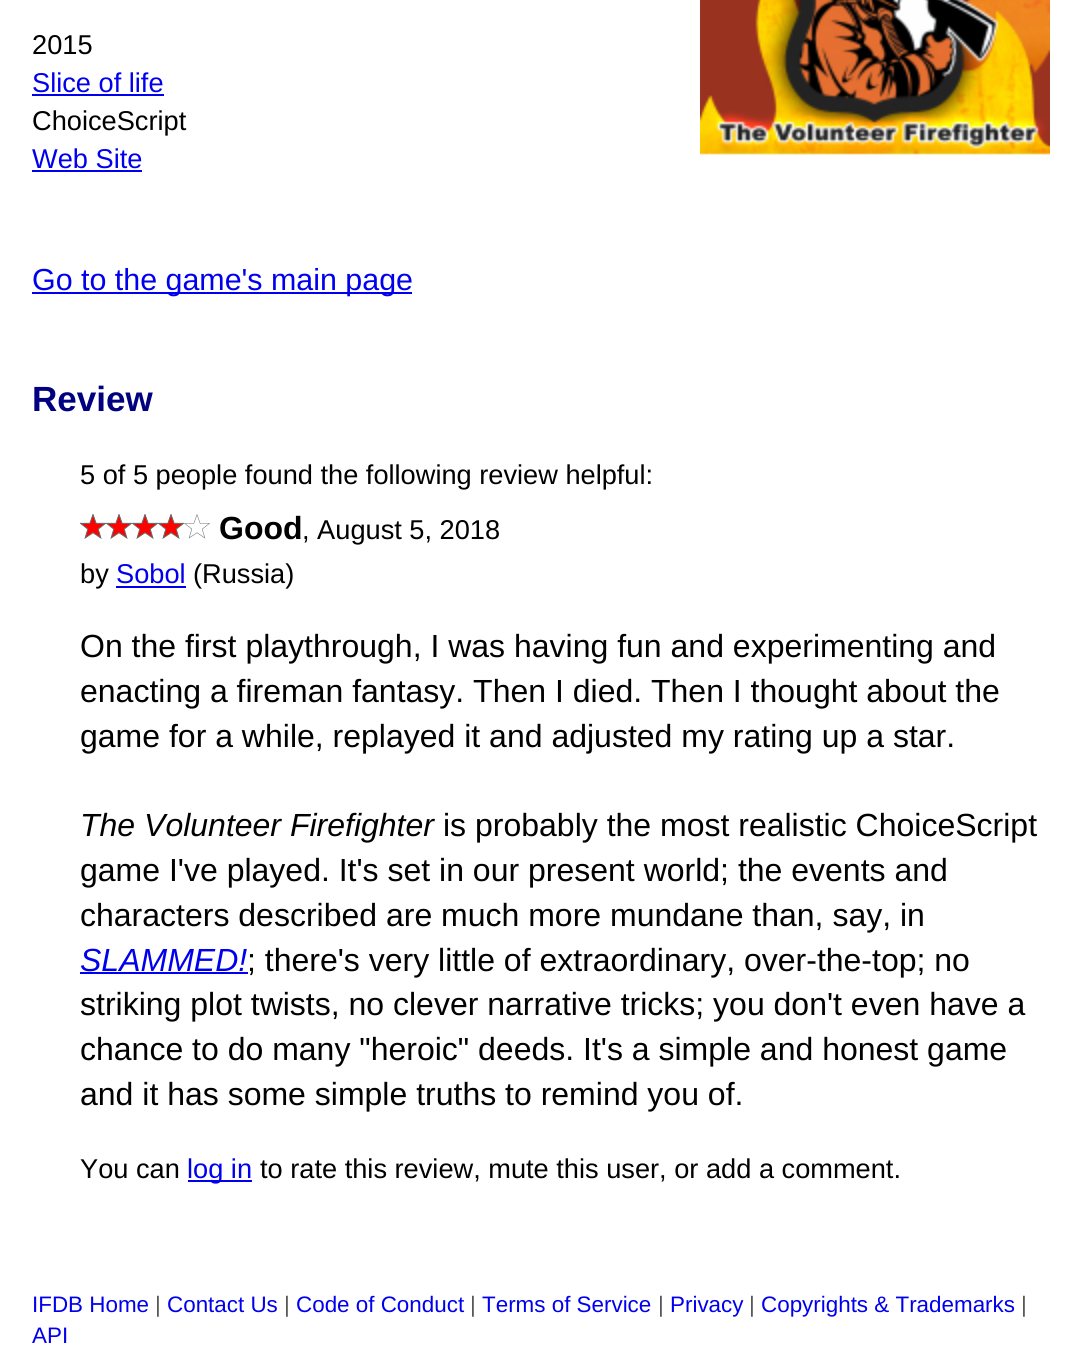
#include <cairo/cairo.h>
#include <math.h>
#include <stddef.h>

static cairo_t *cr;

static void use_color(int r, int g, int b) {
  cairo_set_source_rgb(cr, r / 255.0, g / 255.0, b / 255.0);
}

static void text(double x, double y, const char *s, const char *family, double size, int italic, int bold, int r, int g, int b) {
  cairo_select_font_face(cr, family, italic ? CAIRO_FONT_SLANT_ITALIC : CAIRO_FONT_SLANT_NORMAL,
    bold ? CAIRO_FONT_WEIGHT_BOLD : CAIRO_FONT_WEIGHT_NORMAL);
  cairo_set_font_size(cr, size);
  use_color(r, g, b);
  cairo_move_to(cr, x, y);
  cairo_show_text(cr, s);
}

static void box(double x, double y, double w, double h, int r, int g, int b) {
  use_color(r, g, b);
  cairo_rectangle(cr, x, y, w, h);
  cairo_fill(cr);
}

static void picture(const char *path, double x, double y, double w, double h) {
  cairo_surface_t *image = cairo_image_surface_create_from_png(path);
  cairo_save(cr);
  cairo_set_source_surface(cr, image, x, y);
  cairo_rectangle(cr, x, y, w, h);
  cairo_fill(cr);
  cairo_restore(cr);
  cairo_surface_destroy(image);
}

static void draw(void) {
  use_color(255, 255, 255);
  cairo_paint(cr);
  box(32, 94, 132, 2, 0, 0, 238);
  box(32, 170, 110, 2, 0, 0, 238);
  picture("img_01.png", 700, 0, 350, 155);
  box(32, 292, 380, 2, 0, 0, 238);
  picture("img_02.png", 80, 514, 26, 25);
  picture("img_02.png", 106, 514, 26, 25);
  picture("img_02.png", 132, 514, 26, 25);
  picture("img_02.png", 158, 514, 26, 25);
  picture("img_03.png", 184, 514, 26, 25);
  box(116, 586, 70, 2, 0, 0, 238);
  box(80, 972, 168, 2, 0, 0, 238);
  box(188, 1180, 64, 2, 0, 0, 238);
  text(32, 54, "2015", "Liberation Sans", 27.2, 0, 0, 0, 0, 0);
  text(32, 92, "Slice of life", "Liberation Sans", 27.2, 0, 0, 0, 0, 238);
  text(32, 130, "ChoiceScript", "Liberation Sans", 27.2, 0, 0, 0, 0, 0);
  text(32, 168, "Web Site", "Liberation Sans", 27.2, 0, 0, 0, 0, 238);
  text(32, 290, "Go to the game's main page", "Liberation Sans", 30.4, 0, 0, 0, 0, 238);
  text(32, 411, "Review", "Liberation Sans", 35, 0, 1, 0, 0, 128);
  text(80, 484, "5 of 5 people found the following review helpful:", "Liberation Sans", 27.2, 0, 0, 0, 0, 0);
  text(219, 539, "Good", "Liberation Sans", 32, 0, 1, 0, 0, 0);
  text(302, 539, ", August 5, 2018", "Liberation Sans", 27.2, 0, 0, 0, 0, 0);
  text(80, 583, "by", "Liberation Sans", 27.2, 0, 0, 0, 0, 0);
  text(116, 583, "Sobol", "Liberation Sans", 27.2, 0, 0, 0, 0, 238);
  text(193, 583, "(Russia)", "Liberation Sans", 27.2, 0, 0, 0, 0, 0);
  text(80, 657, "On the first playthrough, I was having fun and experimenting and", "Liberation Sans", 32, 0, 0, 0, 0, 0);
  text(80, 702, "enacting a fireman fantasy. Then I died. Then I thought about the", "Liberation Sans", 32, 0, 0, 0, 0, 0);
  text(80, 747, "game for a while, replayed it and adjusted my rating up a star.", "Liberation Sans", 32, 0, 0, 0, 0, 0);
  text(80, 836, "The Volunteer Firefighter", "Liberation Sans", 32, 1, 0, 0, 0, 0);
  text(443, 836, "is probably the most realistic ChoiceScript", "Liberation Sans", 32, 0, 0, 0, 0, 0);
  text(80, 881, "game I've played. It's set in our present world; the events and", "Liberation Sans", 32, 0, 0, 0, 0, 0);
  text(80, 926, "characters described are much more mundane than, say, in", "Liberation Sans", 32, 0, 0, 0, 0, 0);
  text(80, 971, "SLAMMED!", "Liberation Sans", 32, 1, 0, 0, 0, 238);
  text(247, 971, "; there's very little of extraordinary, over-the-top; no", "Liberation Sans", 32, 0, 0, 0, 0, 0);
  text(80, 1015, "striking plot twists, no clever narrative tricks; you don't even have a", "Liberation Sans", 32, 0, 0, 0, 0, 0);
  text(80, 1060, "chance to do many \"heroic\" deeds. It's a simple and honest game", "Liberation Sans", 32, 0, 0, 0, 0, 0);
  text(80, 1105, "and it has some simple truths to remind you of.", "Liberation Sans", 32, 0, 0, 0, 0, 0);
  text(80, 1178, "You can", "Liberation Sans", 27.2, 0, 0, 0, 0, 0);
  text(187, 1178, "log in", "Liberation Sans", 27.2, 0, 0, 0, 0, 238);
  text(260, 1178, "to rate this review, mute this user, or add a comment.", "Liberation Sans", 27.2, 0, 0, 0, 0, 0);
  text(32, 1312, "IFDB Home", "Liberation Sans", 22.4, 0, 0, 0, 0, 238);
  text(155, 1312, "|", "Liberation Sans", 22.4, 0, 0, 89, 89, 89);
  text(167, 1312, "Contact Us", "Liberation Sans", 22.4, 0, 0, 0, 0, 238);
  text(284, 1312, "|", "Liberation Sans", 22.4, 0, 0, 89, 89, 89);
  text(296, 1312, "Code of Conduct", "Liberation Sans", 22.4, 0, 0, 0, 0, 238);
  text(470, 1312, "|", "Liberation Sans", 22.4, 0, 0, 89, 89, 89);
  text(482, 1312, "Terms of Service", "Liberation Sans", 22.4, 0, 0, 0, 0, 238);
  text(658, 1312, "|", "Liberation Sans", 22.4, 0, 0, 89, 89, 89);
  text(670, 1312, "Privacy", "Liberation Sans", 22.4, 0, 0, 0, 0, 238);
  text(749, 1312, "|", "Liberation Sans", 22.4, 0, 0, 89, 89, 89);
  text(761, 1312, "Copyrights & Trademarks", "Liberation Sans", 22.4, 0, 0, 0, 0, 238);
  text(1021, 1312, "|", "Liberation Sans", 22.4, 0, 0, 89, 89, 89);
  text(32, 1343, "API", "Liberation Sans", 22.4, 0, 0, 0, 0, 238);
}

int main(void) {
  cairo_surface_t *surface = cairo_image_surface_create(CAIRO_FORMAT_RGB24, 1082, 1360);
  cr = cairo_create(surface);
  cairo_font_options_t *options = cairo_font_options_create();
  cairo_font_options_set_hint_metrics(options, CAIRO_HINT_METRICS_OFF);
  cairo_font_options_set_hint_style(options, CAIRO_HINT_STYLE_NONE);
  cairo_set_font_options(cr, options);
  cairo_set_miter_limit(cr, 4);
  draw();
  cairo_surface_write_to_png(surface, "out.png");
  cairo_font_options_destroy(options);
  cairo_destroy(cr);
  cairo_surface_destroy(surface);
  return 0;
}
